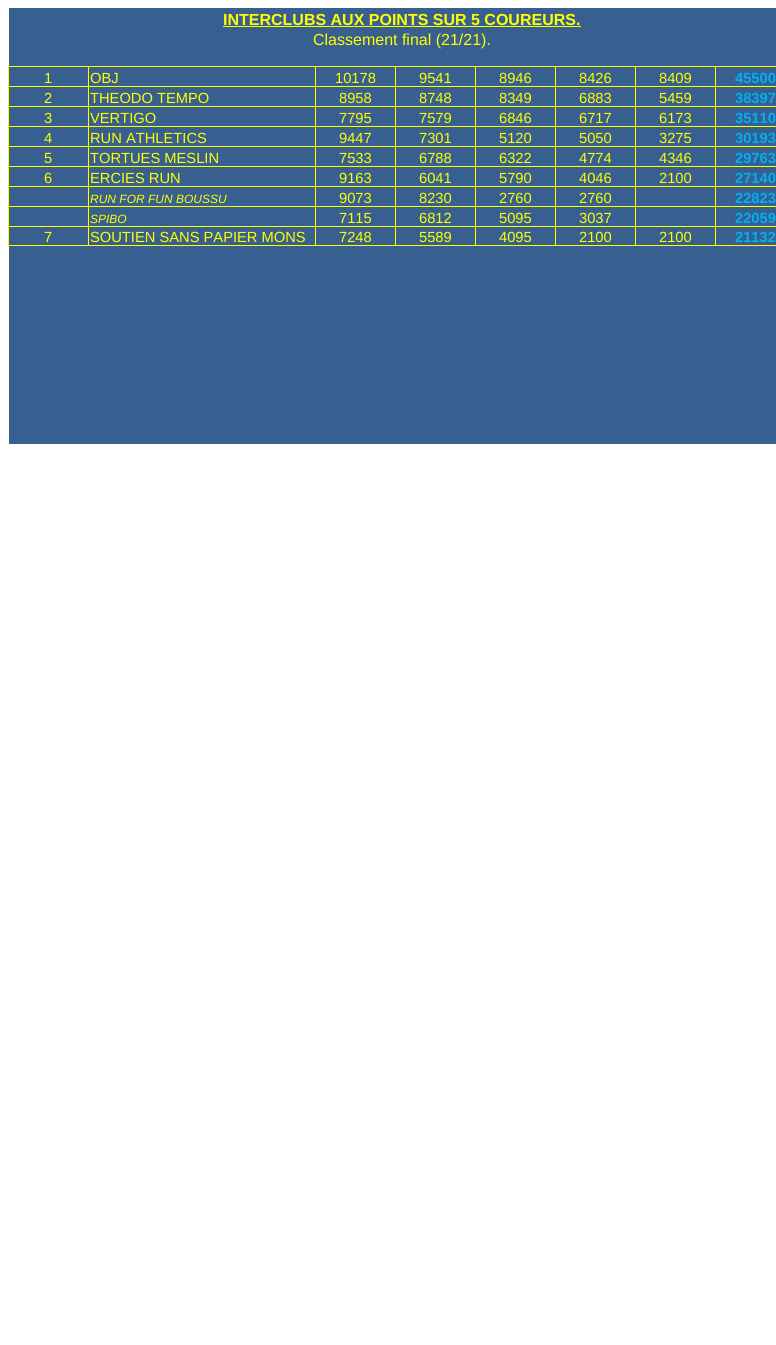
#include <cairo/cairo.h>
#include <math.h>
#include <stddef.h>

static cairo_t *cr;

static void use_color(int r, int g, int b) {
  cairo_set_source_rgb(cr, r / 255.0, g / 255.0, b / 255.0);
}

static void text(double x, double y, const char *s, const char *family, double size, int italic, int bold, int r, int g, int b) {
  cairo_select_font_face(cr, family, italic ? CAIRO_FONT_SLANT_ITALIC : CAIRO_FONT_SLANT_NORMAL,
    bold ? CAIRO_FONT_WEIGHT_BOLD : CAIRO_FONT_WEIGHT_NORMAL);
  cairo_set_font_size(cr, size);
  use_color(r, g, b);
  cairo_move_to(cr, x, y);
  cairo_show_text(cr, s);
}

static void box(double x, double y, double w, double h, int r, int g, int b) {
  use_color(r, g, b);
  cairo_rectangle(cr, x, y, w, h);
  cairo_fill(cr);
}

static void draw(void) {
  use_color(255, 255, 255);
  cairo_paint(cr);
  box(9, 8, 767, 41, 55, 96, 145);
  box(223, 26, 358, 1, 255, 255, 0);
  box(9, 49, 767, 17, 55, 96, 145);
  box(9, 67, 79, 19, 55, 96, 145);
  box(8, 66, 768, 1, 255, 255, 0);
  box(715, 245, 61, 1, 255, 255, 0);
  box(715, 226, 1, 20, 255, 255, 0);
  box(715, 226, 61, 1, 255, 255, 0);
  box(715, 206, 1, 21, 255, 255, 0);
  box(715, 206, 61, 1, 255, 255, 0);
  box(715, 186, 1, 21, 255, 255, 0);
  box(715, 186, 61, 1, 255, 255, 0);
  box(715, 166, 1, 21, 255, 255, 0);
  box(715, 166, 61, 1, 255, 255, 0);
  box(715, 146, 1, 21, 255, 255, 0);
  box(715, 146, 61, 1, 255, 255, 0);
  box(715, 126, 1, 21, 255, 255, 0);
  box(715, 126, 61, 1, 255, 255, 0);
  box(715, 106, 1, 21, 255, 255, 0);
  box(715, 106, 61, 1, 255, 255, 0);
  box(715, 86, 1, 21, 255, 255, 0);
  box(715, 86, 61, 1, 255, 255, 0);
  box(715, 66, 1, 21, 255, 255, 0);
  box(635, 245, 81, 1, 255, 255, 0);
  box(635, 226, 1, 20, 255, 255, 0);
  box(635, 226, 81, 1, 255, 255, 0);
  box(635, 206, 1, 21, 255, 255, 0);
  box(635, 206, 81, 1, 255, 255, 0);
  box(635, 186, 1, 21, 255, 255, 0);
  box(635, 186, 81, 1, 255, 255, 0);
  box(635, 166, 1, 21, 255, 255, 0);
  box(635, 166, 81, 1, 255, 255, 0);
  box(635, 146, 1, 21, 255, 255, 0);
  box(635, 146, 81, 1, 255, 255, 0);
  box(635, 126, 1, 21, 255, 255, 0);
  box(635, 126, 81, 1, 255, 255, 0);
  box(635, 106, 1, 21, 255, 255, 0);
  box(635, 106, 81, 1, 255, 255, 0);
  box(635, 86, 1, 21, 255, 255, 0);
  box(635, 86, 81, 1, 255, 255, 0);
  box(635, 66, 1, 21, 255, 255, 0);
  box(555, 245, 81, 1, 255, 255, 0);
  box(555, 226, 1, 20, 255, 255, 0);
  box(555, 226, 81, 1, 255, 255, 0);
  box(555, 206, 1, 21, 255, 255, 0);
  box(555, 206, 81, 1, 255, 255, 0);
  box(555, 186, 1, 21, 255, 255, 0);
  box(555, 186, 81, 1, 255, 255, 0);
  box(555, 166, 1, 21, 255, 255, 0);
  box(555, 166, 81, 1, 255, 255, 0);
  box(555, 146, 1, 21, 255, 255, 0);
  box(555, 146, 81, 1, 255, 255, 0);
  box(555, 126, 1, 21, 255, 255, 0);
  box(555, 126, 81, 1, 255, 255, 0);
  box(555, 106, 1, 21, 255, 255, 0);
  box(555, 106, 81, 1, 255, 255, 0);
  box(555, 86, 1, 21, 255, 255, 0);
  box(555, 86, 81, 1, 255, 255, 0);
  box(555, 66, 1, 21, 255, 255, 0);
  box(475, 245, 81, 1, 255, 255, 0);
  box(475, 226, 1, 20, 255, 255, 0);
  box(475, 226, 81, 1, 255, 255, 0);
  box(475, 206, 1, 21, 255, 255, 0);
  box(475, 206, 81, 1, 255, 255, 0);
  box(475, 186, 1, 21, 255, 255, 0);
  box(475, 186, 81, 1, 255, 255, 0);
  box(475, 166, 1, 21, 255, 255, 0);
  box(475, 166, 81, 1, 255, 255, 0);
  box(475, 146, 1, 21, 255, 255, 0);
  box(475, 146, 81, 1, 255, 255, 0);
  box(475, 126, 1, 21, 255, 255, 0);
  box(475, 126, 81, 1, 255, 255, 0);
  box(475, 106, 1, 21, 255, 255, 0);
  box(475, 106, 81, 1, 255, 255, 0);
  box(475, 86, 1, 21, 255, 255, 0);
  box(475, 86, 81, 1, 255, 255, 0);
  box(475, 66, 1, 21, 255, 255, 0);
  box(395, 245, 81, 1, 255, 255, 0);
  box(395, 226, 1, 20, 255, 255, 0);
  box(395, 226, 81, 1, 255, 255, 0);
  box(395, 206, 1, 21, 255, 255, 0);
  box(395, 206, 81, 1, 255, 255, 0);
  box(395, 186, 1, 21, 255, 255, 0);
  box(395, 186, 81, 1, 255, 255, 0);
  box(395, 166, 1, 21, 255, 255, 0);
  box(395, 166, 81, 1, 255, 255, 0);
  box(395, 146, 1, 21, 255, 255, 0);
  box(395, 146, 81, 1, 255, 255, 0);
  box(395, 126, 1, 21, 255, 255, 0);
  box(395, 126, 81, 1, 255, 255, 0);
  box(395, 106, 1, 21, 255, 255, 0);
  box(395, 106, 81, 1, 255, 255, 0);
  box(395, 86, 1, 21, 255, 255, 0);
  box(395, 86, 81, 1, 255, 255, 0);
  box(395, 66, 1, 21, 255, 255, 0);
  box(315, 245, 81, 1, 255, 255, 0);
  box(315, 226, 1, 20, 255, 255, 0);
  box(315, 226, 81, 1, 255, 255, 0);
  box(315, 206, 1, 21, 255, 255, 0);
  box(315, 206, 81, 1, 255, 255, 0);
  box(315, 186, 1, 21, 255, 255, 0);
  box(315, 186, 81, 1, 255, 255, 0);
  box(315, 166, 1, 21, 255, 255, 0);
  box(315, 166, 81, 1, 255, 255, 0);
  box(315, 146, 1, 21, 255, 255, 0);
  box(315, 146, 81, 1, 255, 255, 0);
  box(315, 126, 1, 21, 255, 255, 0);
  box(315, 126, 81, 1, 255, 255, 0);
  box(315, 106, 1, 21, 255, 255, 0);
  box(315, 106, 81, 1, 255, 255, 0);
  box(315, 86, 1, 21, 255, 255, 0);
  box(315, 86, 81, 1, 255, 255, 0);
  box(315, 66, 1, 21, 255, 255, 0);
  box(88, 245, 228, 1, 255, 255, 0);
  box(88, 226, 1, 20, 255, 255, 0);
  box(88, 226, 228, 1, 255, 255, 0);
  box(88, 206, 1, 21, 255, 255, 0);
  box(88, 206, 228, 1, 255, 255, 0);
  box(88, 186, 1, 21, 255, 255, 0);
  box(88, 186, 228, 1, 255, 255, 0);
  box(88, 166, 1, 21, 255, 255, 0);
  box(88, 166, 228, 1, 255, 255, 0);
  box(88, 146, 1, 21, 255, 255, 0);
  box(88, 146, 228, 1, 255, 255, 0);
  box(88, 126, 1, 21, 255, 255, 0);
  box(88, 126, 228, 1, 255, 255, 0);
  box(88, 106, 1, 21, 255, 255, 0);
  box(88, 106, 228, 1, 255, 255, 0);
  box(88, 86, 1, 21, 255, 255, 0);
  box(88, 86, 228, 1, 255, 255, 0);
  box(88, 66, 1, 21, 255, 255, 0);
  box(8, 245, 81, 1, 255, 255, 0);
  box(8, 226, 1, 20, 255, 255, 0);
  box(8, 226, 81, 1, 255, 255, 0);
  box(8, 206, 1, 21, 255, 255, 0);
  box(8, 206, 81, 1, 255, 255, 0);
  box(8, 186, 1, 21, 255, 255, 0);
  box(8, 186, 81, 1, 255, 255, 0);
  box(8, 166, 1, 21, 255, 255, 0);
  box(8, 166, 81, 1, 255, 255, 0);
  box(8, 146, 1, 21, 255, 255, 0);
  box(8, 146, 81, 1, 255, 255, 0);
  box(8, 126, 1, 21, 255, 255, 0);
  box(8, 126, 81, 1, 255, 255, 0);
  box(8, 106, 1, 21, 255, 255, 0);
  box(8, 106, 81, 1, 255, 255, 0);
  box(8, 86, 1, 21, 255, 255, 0);
  box(8, 86, 81, 1, 255, 255, 0);
  box(8, 66, 1, 21, 255, 255, 0);
  box(89, 67, 226, 19, 55, 96, 145);
  box(316, 67, 79, 19, 55, 96, 145);
  box(396, 67, 79, 19, 55, 96, 145);
  box(476, 67, 79, 19, 55, 96, 145);
  box(556, 67, 79, 19, 55, 96, 145);
  box(636, 67, 79, 19, 55, 96, 145);
  box(716, 67, 60, 19, 55, 96, 145);
  box(9, 87, 79, 19, 55, 96, 145);
  box(89, 87, 226, 19, 55, 96, 145);
  box(316, 87, 79, 19, 55, 96, 145);
  box(396, 87, 79, 19, 55, 96, 145);
  box(476, 87, 79, 19, 55, 96, 145);
  box(556, 87, 79, 19, 55, 96, 145);
  box(636, 87, 79, 19, 55, 96, 145);
  box(716, 87, 60, 19, 55, 96, 145);
  box(9, 107, 79, 19, 55, 96, 145);
  box(89, 107, 226, 19, 55, 96, 145);
  box(316, 107, 79, 19, 55, 96, 145);
  box(396, 107, 79, 19, 55, 96, 145);
  box(476, 107, 79, 19, 55, 96, 145);
  box(556, 107, 79, 19, 55, 96, 145);
  box(636, 107, 79, 19, 55, 96, 145);
  box(716, 107, 60, 19, 55, 96, 145);
  box(9, 127, 79, 19, 55, 96, 145);
  box(89, 127, 226, 19, 55, 96, 145);
  box(316, 127, 79, 19, 55, 96, 145);
  box(396, 127, 79, 19, 55, 96, 145);
  box(476, 127, 79, 19, 55, 96, 145);
  box(556, 127, 79, 19, 55, 96, 145);
  box(636, 127, 79, 19, 55, 96, 145);
  box(716, 127, 60, 19, 55, 96, 145);
  box(9, 147, 79, 19, 55, 96, 145);
  box(89, 147, 226, 19, 55, 96, 145);
  box(316, 147, 79, 19, 55, 96, 145);
  box(396, 147, 79, 19, 55, 96, 145);
  box(476, 147, 79, 19, 55, 96, 145);
  box(556, 147, 79, 19, 55, 96, 145);
  box(636, 147, 79, 19, 55, 96, 145);
  box(716, 147, 60, 19, 55, 96, 145);
  box(9, 167, 79, 19, 55, 96, 145);
  box(89, 167, 226, 19, 55, 96, 145);
  box(316, 167, 79, 19, 55, 96, 145);
  box(396, 167, 79, 19, 55, 96, 145);
  box(476, 167, 79, 19, 55, 96, 145);
  box(556, 167, 79, 19, 55, 96, 145);
  box(636, 167, 79, 19, 55, 96, 145);
  box(716, 167, 60, 19, 55, 96, 145);
  box(9, 187, 79, 19, 55, 96, 145);
  box(89, 187, 226, 19, 55, 96, 145);
  box(316, 187, 79, 19, 55, 96, 145);
  box(396, 187, 79, 19, 55, 96, 145);
  box(476, 187, 79, 19, 55, 96, 145);
  box(556, 187, 79, 19, 55, 96, 145);
  box(636, 187, 79, 19, 55, 96, 145);
  box(716, 187, 60, 19, 55, 96, 145);
  box(9, 207, 79, 19, 55, 96, 145);
  box(89, 207, 226, 19, 55, 96, 145);
  box(316, 207, 79, 19, 55, 96, 145);
  box(396, 207, 79, 19, 55, 96, 145);
  box(476, 207, 79, 19, 55, 96, 145);
  box(556, 207, 79, 19, 55, 96, 145);
  box(636, 207, 79, 19, 55, 96, 145);
  box(716, 207, 60, 19, 55, 96, 145);
  box(9, 227, 79, 18, 55, 96, 145);
  box(89, 227, 226, 18, 55, 96, 145);
  box(316, 227, 79, 18, 55, 96, 145);
  box(396, 227, 79, 18, 55, 96, 145);
  box(476, 227, 79, 18, 55, 96, 145);
  box(556, 227, 79, 18, 55, 96, 145);
  box(636, 227, 79, 18, 55, 96, 145);
  box(716, 227, 60, 18, 55, 96, 145);
  box(9, 246, 767, 18, 55, 96, 145);
  box(9, 264, 767, 20, 55, 96, 145);
  box(9, 284, 767, 19, 55, 96, 145);
  box(9, 303, 767, 19, 55, 96, 145);
  box(9, 322, 767, 20, 55, 96, 145);
  box(9, 342, 767, 17, 55, 96, 145);
  box(9, 359, 767, 17, 55, 96, 145);
  box(9, 376, 767, 17, 55, 96, 145);
  box(9, 393, 767, 17, 55, 96, 145);
  box(9, 410, 767, 17, 55, 96, 145);
  box(9, 427, 767, 17, 55, 96, 145);
  text(223, 25, "INTERCLUBS AUX POINTS SUR 5 COUREURS.", "Liberation Sans", 16, 0, 1, 255, 255, 0);
  text(313, 45, "Classement final (21/21).", "Liberation Sans", 16, 0, 0, 255, 255, 0);
  text(44, 83, "1", "Liberation Sans", 14.7, 0, 0, 255, 255, 0);
  text(90, 83, "OBJ", "Liberation Sans", 14.7, 0, 0, 255, 255, 0);
  text(335, 83, "10178", "Liberation Sans", 14.7, 0, 0, 255, 255, 0);
  text(419, 83, "9541", "Liberation Sans", 14.7, 0, 0, 255, 255, 0);
  text(499, 83, "8946", "Liberation Sans", 14.7, 0, 0, 255, 255, 0);
  text(579, 83, "8426", "Liberation Sans", 14.7, 0, 0, 255, 255, 0);
  text(659, 83, "8409", "Liberation Sans", 14.7, 0, 0, 255, 255, 0);
  text(735, 83, "45500", "Liberation Sans", 14.7, 0, 1, 0, 176, 240);
  text(44, 103, "2", "Liberation Sans", 14.7, 0, 0, 255, 255, 0);
  text(90, 103, "THEODO TEMPO", "Liberation Sans", 14.7, 0, 0, 255, 255, 0);
  text(339, 103, "8958", "Liberation Sans", 14.7, 0, 0, 255, 255, 0);
  text(419, 103, "8748", "Liberation Sans", 14.7, 0, 0, 255, 255, 0);
  text(499, 103, "8349", "Liberation Sans", 14.7, 0, 0, 255, 255, 0);
  text(579, 103, "6883", "Liberation Sans", 14.7, 0, 0, 255, 255, 0);
  text(659, 103, "5459", "Liberation Sans", 14.7, 0, 0, 255, 255, 0);
  text(735, 103, "38397", "Liberation Sans", 14.7, 0, 1, 0, 176, 240);
  text(44, 123, "3", "Liberation Sans", 14.7, 0, 0, 255, 255, 0);
  text(90, 123, "VERTIGO", "Liberation Sans", 14.7, 0, 0, 255, 255, 0);
  text(339, 123, "7795", "Liberation Sans", 14.7, 0, 0, 255, 255, 0);
  text(419, 123, "7579", "Liberation Sans", 14.7, 0, 0, 255, 255, 0);
  text(499, 123, "6846", "Liberation Sans", 14.7, 0, 0, 255, 255, 0);
  text(579, 123, "6717", "Liberation Sans", 14.7, 0, 0, 255, 255, 0);
  text(659, 123, "6173", "Liberation Sans", 14.7, 0, 0, 255, 255, 0);
  text(735, 123, "35110", "Liberation Sans", 14.7, 0, 1, 0, 176, 240);
  text(44, 143, "4", "Liberation Sans", 14.7, 0, 0, 255, 255, 0);
  text(90, 143, "RUN ATHLETICS", "Liberation Sans", 14.7, 0, 0, 255, 255, 0);
  text(339, 143, "9447", "Liberation Sans", 14.7, 0, 0, 255, 255, 0);
  text(419, 143, "7301", "Liberation Sans", 14.7, 0, 0, 255, 255, 0);
  text(499, 143, "5120", "Liberation Sans", 14.7, 0, 0, 255, 255, 0);
  text(579, 143, "5050", "Liberation Sans", 14.7, 0, 0, 255, 255, 0);
  text(659, 143, "3275", "Liberation Sans", 14.7, 0, 0, 255, 255, 0);
  text(735, 143, "30193", "Liberation Sans", 14.7, 0, 1, 0, 176, 240);
  text(44, 163, "5", "Liberation Sans", 14.7, 0, 0, 255, 255, 0);
  text(90, 163, "TORTUES MESLIN", "Liberation Sans", 14.7, 0, 0, 255, 255, 0);
  text(339, 163, "7533", "Liberation Sans", 14.7, 0, 0, 255, 255, 0);
  text(419, 163, "6788", "Liberation Sans", 14.7, 0, 0, 255, 255, 0);
  text(499, 163, "6322", "Liberation Sans", 14.7, 0, 0, 255, 255, 0);
  text(579, 163, "4774", "Liberation Sans", 14.7, 0, 0, 255, 255, 0);
  text(659, 163, "4346", "Liberation Sans", 14.7, 0, 0, 255, 255, 0);
  text(735, 163, "29763", "Liberation Sans", 14.7, 0, 1, 0, 176, 240);
  text(44, 183, "6", "Liberation Sans", 14.7, 0, 0, 255, 255, 0);
  text(90, 183, "ERCIES RUN", "Liberation Sans", 14.7, 0, 0, 255, 255, 0);
  text(339, 183, "9163", "Liberation Sans", 14.7, 0, 0, 255, 255, 0);
  text(419, 183, "6041", "Liberation Sans", 14.7, 0, 0, 255, 255, 0);
  text(499, 183, "5790", "Liberation Sans", 14.7, 0, 0, 255, 255, 0);
  text(579, 183, "4046", "Liberation Sans", 14.7, 0, 0, 255, 255, 0);
  text(659, 183, "2100", "Liberation Sans", 14.7, 0, 0, 255, 255, 0);
  text(735, 183, "27140", "Liberation Sans", 14.7, 0, 1, 0, 176, 240);
  text(90, 203, "RUN FOR FUN BOUSSU", "Liberation Sans", 12, 1, 0, 255, 255, 0);
  text(339, 203, "9073", "Liberation Sans", 14.7, 0, 0, 255, 255, 0);
  text(419, 203, "8230", "Liberation Sans", 14.7, 0, 0, 255, 255, 0);
  text(499, 203, "2760", "Liberation Sans", 14.7, 0, 0, 255, 255, 0);
  text(579, 203, "2760", "Liberation Sans", 14.7, 0, 0, 255, 255, 0);
  text(735, 203, "22823", "Liberation Sans", 14.7, 0, 1, 0, 176, 240);
  text(90, 223, "SPIBO", "Liberation Sans", 12, 1, 0, 255, 255, 0);
  text(339, 223, "7115", "Liberation Sans", 14.7, 0, 0, 255, 255, 0);
  text(419, 223, "6812", "Liberation Sans", 14.7, 0, 0, 255, 255, 0);
  text(499, 223, "5095", "Liberation Sans", 14.7, 0, 0, 255, 255, 0);
  text(579, 223, "3037", "Liberation Sans", 14.7, 0, 0, 255, 255, 0);
  text(735, 223, "22059", "Liberation Sans", 14.7, 0, 1, 0, 176, 240);
  text(44, 242, "7", "Liberation Sans", 14.7, 0, 0, 255, 255, 0);
  text(90, 242, "SOUTIEN SANS PAPIER MONS", "Liberation Sans", 14.7, 0, 0, 255, 255, 0);
  text(339, 242, "7248", "Liberation Sans", 14.7, 0, 0, 255, 255, 0);
  text(419, 242, "5589", "Liberation Sans", 14.7, 0, 0, 255, 255, 0);
  text(499, 242, "4095", "Liberation Sans", 14.7, 0, 0, 255, 255, 0);
  text(579, 242, "2100", "Liberation Sans", 14.7, 0, 0, 255, 255, 0);
  text(659, 242, "2100", "Liberation Sans", 14.7, 0, 0, 255, 255, 0);
  text(735, 242, "21132", "Liberation Sans", 14.7, 0, 1, 0, 176, 240);
}

int main(void) {
  cairo_surface_t *surface = cairo_image_surface_create(CAIRO_FORMAT_RGB24, 776, 1345);
  cr = cairo_create(surface);
  cairo_font_options_t *options = cairo_font_options_create();
  cairo_font_options_set_hint_metrics(options, CAIRO_HINT_METRICS_OFF);
  cairo_font_options_set_hint_style(options, CAIRO_HINT_STYLE_NONE);
  cairo_set_font_options(cr, options);
  cairo_set_miter_limit(cr, 4);
  draw();
  cairo_surface_write_to_png(surface, "out.png");
  cairo_font_options_destroy(options);
  cairo_destroy(cr);
  cairo_surface_destroy(surface);
  return 0;
}
